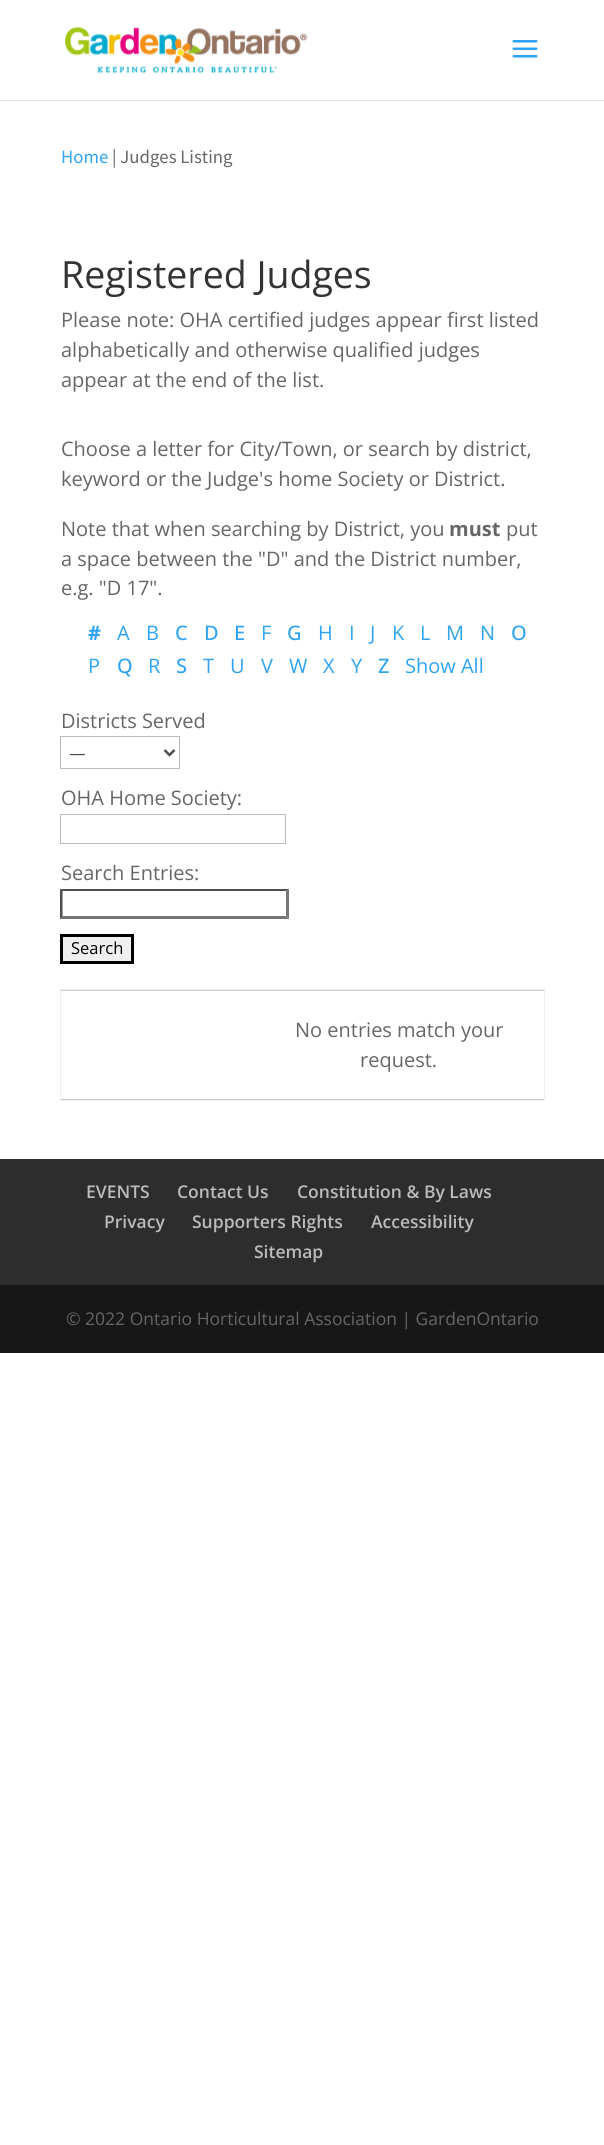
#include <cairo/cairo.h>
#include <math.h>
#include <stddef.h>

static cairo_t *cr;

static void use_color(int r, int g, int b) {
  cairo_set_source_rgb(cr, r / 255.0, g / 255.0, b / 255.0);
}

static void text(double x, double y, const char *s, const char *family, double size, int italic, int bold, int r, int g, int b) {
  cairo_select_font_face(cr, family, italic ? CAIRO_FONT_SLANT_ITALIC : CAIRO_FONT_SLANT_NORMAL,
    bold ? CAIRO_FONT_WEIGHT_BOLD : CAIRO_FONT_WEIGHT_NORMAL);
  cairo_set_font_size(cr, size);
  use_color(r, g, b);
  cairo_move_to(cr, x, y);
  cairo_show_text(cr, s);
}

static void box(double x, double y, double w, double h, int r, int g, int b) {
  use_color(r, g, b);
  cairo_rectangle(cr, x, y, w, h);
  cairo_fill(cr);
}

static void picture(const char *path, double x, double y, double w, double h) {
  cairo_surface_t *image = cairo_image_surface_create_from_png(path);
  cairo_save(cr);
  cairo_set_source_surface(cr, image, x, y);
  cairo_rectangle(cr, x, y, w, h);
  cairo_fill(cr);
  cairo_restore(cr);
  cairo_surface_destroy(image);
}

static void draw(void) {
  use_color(255, 255, 255);
  cairo_paint(cr);
  box(0, 100, 604, 1, 230, 230, 230);
  picture("img_01.png", 65, 27, 242, 47);
  picture("img_02.png", 512, 40, 26, 18);
  cairo_rectangle(cr, 60.5, 736.5, 119, 32);
  use_color(187, 187, 187);
  cairo_set_line_width(cr, 1);
  cairo_stroke(cr);
  cairo_new_path(cr);
  cairo_move_to(cr, 164.5, 750);
  cairo_line_to(cr, 169.5, 755);
  cairo_line_to(cr, 174.5, 750);
  use_color(78, 78, 78);
  cairo_set_line_width(cr, 2.5);
  cairo_stroke(cr);
  cairo_rectangle(cr, 60.5, 814.5, 225, 29);
  use_color(187, 187, 187);
  cairo_set_line_width(cr, 1);
  cairo_stroke(cr);
  use_color(79, 79, 79);
  cairo_new_path(cr);
  cairo_move_to(cr, 60, 889);
  cairo_line_to(cr, 289, 889);
  cairo_line_to(cr, 286, 891);
  cairo_line_to(cr, 62, 891);
  cairo_close_path(cr);
  cairo_fill(cr);
  use_color(118, 118, 118);
  cairo_new_path(cr);
  cairo_move_to(cr, 289, 889);
  cairo_line_to(cr, 289, 919);
  cairo_line_to(cr, 286, 916);
  cairo_line_to(cr, 286, 891);
  cairo_close_path(cr);
  cairo_fill(cr);
  cairo_new_path(cr);
  cairo_move_to(cr, 289, 919);
  cairo_line_to(cr, 60, 919);
  cairo_line_to(cr, 62, 916);
  cairo_line_to(cr, 286, 916);
  cairo_close_path(cr);
  cairo_fill(cr);
  use_color(79, 79, 79);
  cairo_new_path(cr);
  cairo_move_to(cr, 60, 919);
  cairo_line_to(cr, 60, 889);
  cairo_line_to(cr, 62.5, 891);
  cairo_line_to(cr, 62.5, 916);
  cairo_close_path(cr);
  cairo_fill(cr);
  use_color(239, 239, 239);
  cairo_rectangle(cr, 61.5, 935.5, 71, 27);
  cairo_fill_preserve(cr);
  use_color(0, 0, 0);
  cairo_set_line_width(cr, 3);
  cairo_stroke(cr);
  box(60, 989, 485, 1, 238, 238, 238);
  box(544, 989, 1, 112, 238, 238, 238);
  box(60, 1100, 485, 1, 238, 238, 238);
  box(60, 989, 1, 112, 238, 238, 238);
  box(61, 990, 483, 1, 204, 204, 204);
  box(61, 1099, 483, 1, 204, 204, 204);
  box(0, 1159, 604, 126, 45, 45, 45);
  box(0, 1285, 604, 68, 23, 23, 23);
  text(61, 163, "Home", "Source Sans Pro", 18.75, 0, 0, 46, 163, 242);
  text(112, 163, "| Judges Listing", "Source Sans Pro", 18.75, 0, 0, 102, 102, 102);
  text(61, 288, "Registered Judges", "Open Sans", 37.5, 0, 0, 51, 51, 51);
  text(61, 327, "Please note: OHA certified judges appear first listed", "Open Sans", 20, 0, 0, 102, 102, 102);
  text(61, 357, "alphabetically and otherwise qualified judges", "Open Sans", 20, 0, 0, 102, 102, 102);
  text(61, 387, "appear at the end of the list.", "Open Sans", 20, 0, 0, 102, 102, 102);
  text(61, 456, "Choose a letter for City/Town, or search by district,", "Open Sans", 20, 0, 0, 102, 102, 102);
  text(61, 486, "keyword or the Judge's home Society or District.", "Open Sans", 20, 0, 0, 102, 102, 102);
  text(61, 536, "Note that when searching by District, you", "Open Sans", 20, 0, 0, 102, 102, 102);
  text(449, 536, "must", "Open Sans", 20, 0, 1, 102, 102, 102);
  text(506, 536, "put", "Open Sans", 20, 0, 0, 102, 102, 102);
  text(61, 566, "a space between the \"D\" and the District number,", "Open Sans", 20, 0, 0, 102, 102, 102);
  text(61, 595, "e.g. \"D 17\".", "Open Sans", 20, 0, 0, 102, 102, 102);
  text(88, 640, "#", "Open Sans", 20, 0, 1, 46, 163, 242);
  text(117, 640, "A", "Open Sans", 20, 0, 0, 46, 163, 242);
  text(146, 640, "B", "Open Sans", 20, 0, 0, 46, 163, 242);
  text(175, 640, "C", "Open Sans Medium", 20, 0, 0, 46, 163, 242);
  text(204, 640, "D", "Open Sans Medium", 20, 0, 0, 46, 163, 242);
  text(234, 640, "E", "Open Sans Medium", 20, 0, 0, 46, 163, 242);
  text(261, 640, "F", "Open Sans", 20, 0, 0, 46, 163, 242);
  text(287, 640, "G", "Open Sans Medium", 20, 0, 0, 46, 163, 242);
  text(318, 640, "H", "Open Sans", 20, 0, 0, 46, 163, 242);
  text(349, 640, "I", "Open Sans", 20, 0, 0, 46, 163, 242);
  text(370, 640, "J", "Open Sans", 20, 0, 0, 46, 163, 242);
  text(392, 640, "K", "Open Sans", 20, 0, 0, 46, 163, 242);
  text(420, 640, "L", "Open Sans", 20, 0, 0, 46, 163, 242);
  text(446, 640, "M", "Open Sans", 20, 0, 0, 46, 163, 242);
  text(480, 640, "N", "Open Sans", 20, 0, 0, 46, 163, 242);
  text(511, 640, "O", "Open Sans Medium", 20, 0, 0, 46, 163, 242);
  text(88, 673, "P", "Open Sans", 20, 0, 0, 46, 163, 242);
  text(117, 673, "Q", "Open Sans Medium", 20, 0, 0, 46, 163, 242);
  text(148, 673, "R", "Open Sans", 20, 0, 0, 46, 163, 242);
  text(176, 673, "S", "Open Sans Medium", 20, 0, 0, 46, 163, 242);
  text(203, 673, "T", "Open Sans", 20, 0, 0, 46, 163, 242);
  text(230, 673, "U", "Open Sans", 20, 0, 0, 46, 163, 242);
  text(261, 673, "V", "Open Sans", 20, 0, 0, 46, 163, 242);
  text(289, 673, "W", "Open Sans", 20, 0, 0, 46, 163, 242);
  text(323, 673, "X", "Open Sans", 20, 0, 0, 46, 163, 242);
  text(351, 673, "Y", "Open Sans", 20, 0, 0, 46, 163, 242);
  text(378, 673, "Z", "Open Sans Medium", 20, 0, 0, 46, 163, 242);
  text(405, 673, "Show All", "Open Sans", 20, 0, 0, 46, 163, 242);
  text(61, 728, "Districts Served", "Open Sans", 20, 0, 0, 102, 102, 102);
  text(69, 759, "—", "Open Sans", 16.5, 0, 0, 78, 78, 78);
  text(61, 805, "OHA Home Society:", "Open Sans", 20, 0, 0, 102, 102, 102);
  text(61, 880, "Search Entries:", "Open Sans", 20, 0, 0, 102, 102, 102);
  text(71, 954, "Search", "Open Sans", 16.5, 0, 0, 0, 0, 0);
  text(295, 1037, "No entries match your", "Open Sans", 20, 0, 0, 102, 102, 102);
  text(360, 1067, "request.", "Open Sans", 20, 0, 0, 102, 102, 102);
  text(86, 1198, "EVENTS", "Open Sans SemiBold", 17.5, 0, 0, 187, 187, 187);
  text(177, 1198, "Contact Us", "Open Sans SemiBold", 17.5, 0, 0, 187, 187, 187);
  text(297, 1198, "Constitution & By Laws", "Open Sans SemiBold", 17.5, 0, 0, 187, 187, 187);
  text(104, 1228, "Privacy", "Open Sans SemiBold", 17.5, 0, 0, 187, 187, 187);
  text(192, 1228, "Supporters Rights", "Open Sans SemiBold", 17.5, 0, 0, 187, 187, 187);
  text(371, 1228, "Accessibility", "Open Sans SemiBold", 17.5, 0, 0, 187, 187, 187);
  text(254, 1258, "Sitemap", "Open Sans SemiBold", 17.5, 0, 0, 187, 187, 187);
  text(66, 1325, "© 2022 Ontario Horticultural Association | GardenOntario", "Open Sans", 17.5, 0, 0, 102, 102, 102);
}

int main(void) {
  cairo_surface_t *surface = cairo_image_surface_create(CAIRO_FORMAT_RGB24, 604, 2145);
  cr = cairo_create(surface);
  cairo_font_options_t *options = cairo_font_options_create();
  cairo_font_options_set_hint_metrics(options, CAIRO_HINT_METRICS_OFF);
  cairo_font_options_set_hint_style(options, CAIRO_HINT_STYLE_NONE);
  cairo_set_font_options(cr, options);
  cairo_set_miter_limit(cr, 4);
  draw();
  cairo_surface_write_to_png(surface, "out.png");
  cairo_font_options_destroy(options);
  cairo_destroy(cr);
  cairo_surface_destroy(surface);
  return 0;
}
